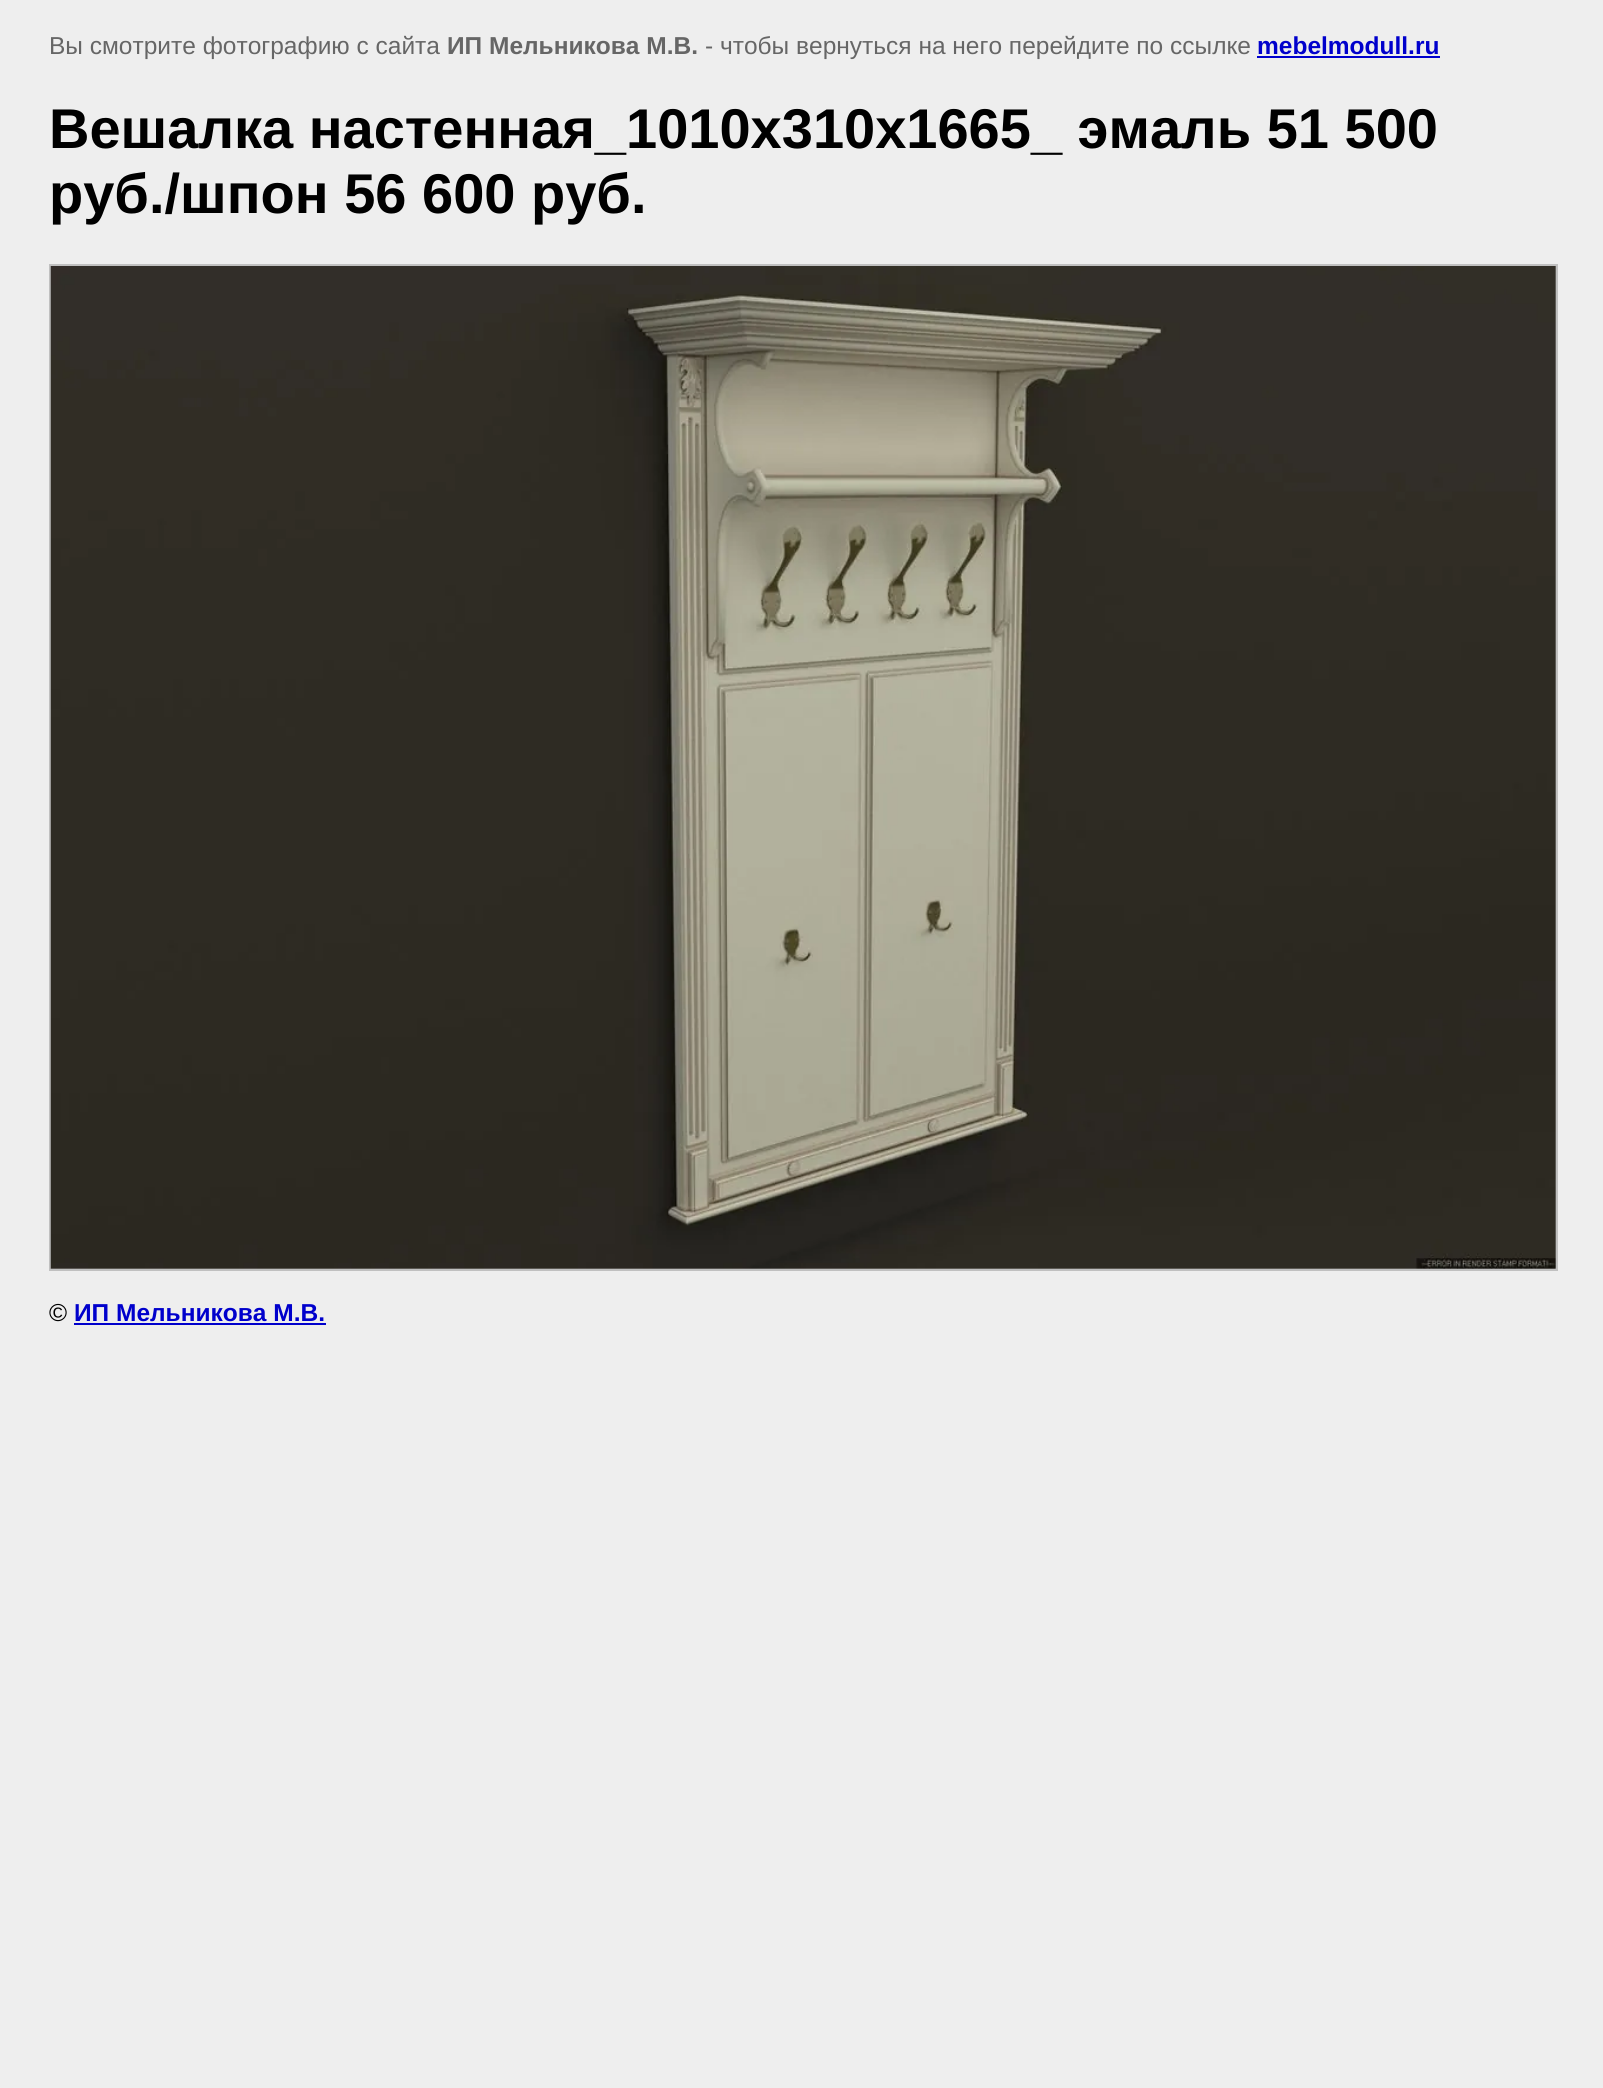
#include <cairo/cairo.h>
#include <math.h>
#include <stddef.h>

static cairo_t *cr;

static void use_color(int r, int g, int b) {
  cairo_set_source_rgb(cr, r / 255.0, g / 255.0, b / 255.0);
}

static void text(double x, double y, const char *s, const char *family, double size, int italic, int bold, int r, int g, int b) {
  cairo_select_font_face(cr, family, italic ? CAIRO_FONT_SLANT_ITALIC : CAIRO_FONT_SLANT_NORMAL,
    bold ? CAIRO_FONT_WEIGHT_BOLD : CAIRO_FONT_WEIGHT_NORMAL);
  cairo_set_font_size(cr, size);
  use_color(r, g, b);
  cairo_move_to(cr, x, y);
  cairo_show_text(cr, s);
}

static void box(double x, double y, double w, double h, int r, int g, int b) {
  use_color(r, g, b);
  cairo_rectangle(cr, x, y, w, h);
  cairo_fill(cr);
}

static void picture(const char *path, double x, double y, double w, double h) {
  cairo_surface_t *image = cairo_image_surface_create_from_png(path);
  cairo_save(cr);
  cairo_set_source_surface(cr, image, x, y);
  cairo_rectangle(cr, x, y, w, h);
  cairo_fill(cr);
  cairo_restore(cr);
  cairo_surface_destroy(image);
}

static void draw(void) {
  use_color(238, 238, 238);
  cairo_paint(cr);
  box(1257, 56, 183, 2, 0, 0, 204);
  cairo_rectangle(cr, 50, 265, 1507, 1005);
  use_color(192, 192, 192);
  cairo_stroke(cr);
  picture("img_01.png", 50, 266, 1506, 1003);
  box(74, 1323, 252, 2, 0, 0, 204);
  text(49, 54, "Вы смотрите фотографию с сайта", "Liberation Sans", 24.5, 0, 0, 102, 102, 102);
  text(447, 54, "ИП Мельникова М.В.", "Liberation Sans", 24.5, 0, 1, 102, 102, 102);
  text(705, 54, "- чтобы вернуться на него перейдите по ссылке", "Liberation Sans", 24.5, 0, 0, 102, 102, 102);
  text(1257, 54, "mebelmodull.ru", "Liberation Sans", 24.5, 0, 1, 0, 0, 204);
  text(49, 148, "Вешалка настенная_1010х310х1665_ эмаль 51 500", "Liberation Sans", 56, 0, 1, 0, 0, 0);
  text(49, 213, "руб./шпон 56 600 руб.", "Liberation Sans", 56, 0, 1, 0, 0, 0);
  text(49, 1321, "©", "Liberation Sans", 24.5, 0, 0, 0, 0, 0);
  text(74, 1321, "ИП Мельникова М.В.", "Liberation Sans", 24.5, 0, 1, 0, 0, 204);
}

int main(void) {
  cairo_surface_t *surface = cairo_image_surface_create(CAIRO_FORMAT_RGB24, 1603, 2088);
  cr = cairo_create(surface);
  cairo_font_options_t *options = cairo_font_options_create();
  cairo_font_options_set_hint_metrics(options, CAIRO_HINT_METRICS_OFF);
  cairo_font_options_set_hint_style(options, CAIRO_HINT_STYLE_NONE);
  cairo_set_font_options(cr, options);
  cairo_set_miter_limit(cr, 4);
  draw();
  cairo_surface_write_to_png(surface, "out.png");
  cairo_font_options_destroy(options);
  cairo_destroy(cr);
  cairo_surface_destroy(surface);
  return 0;
}
